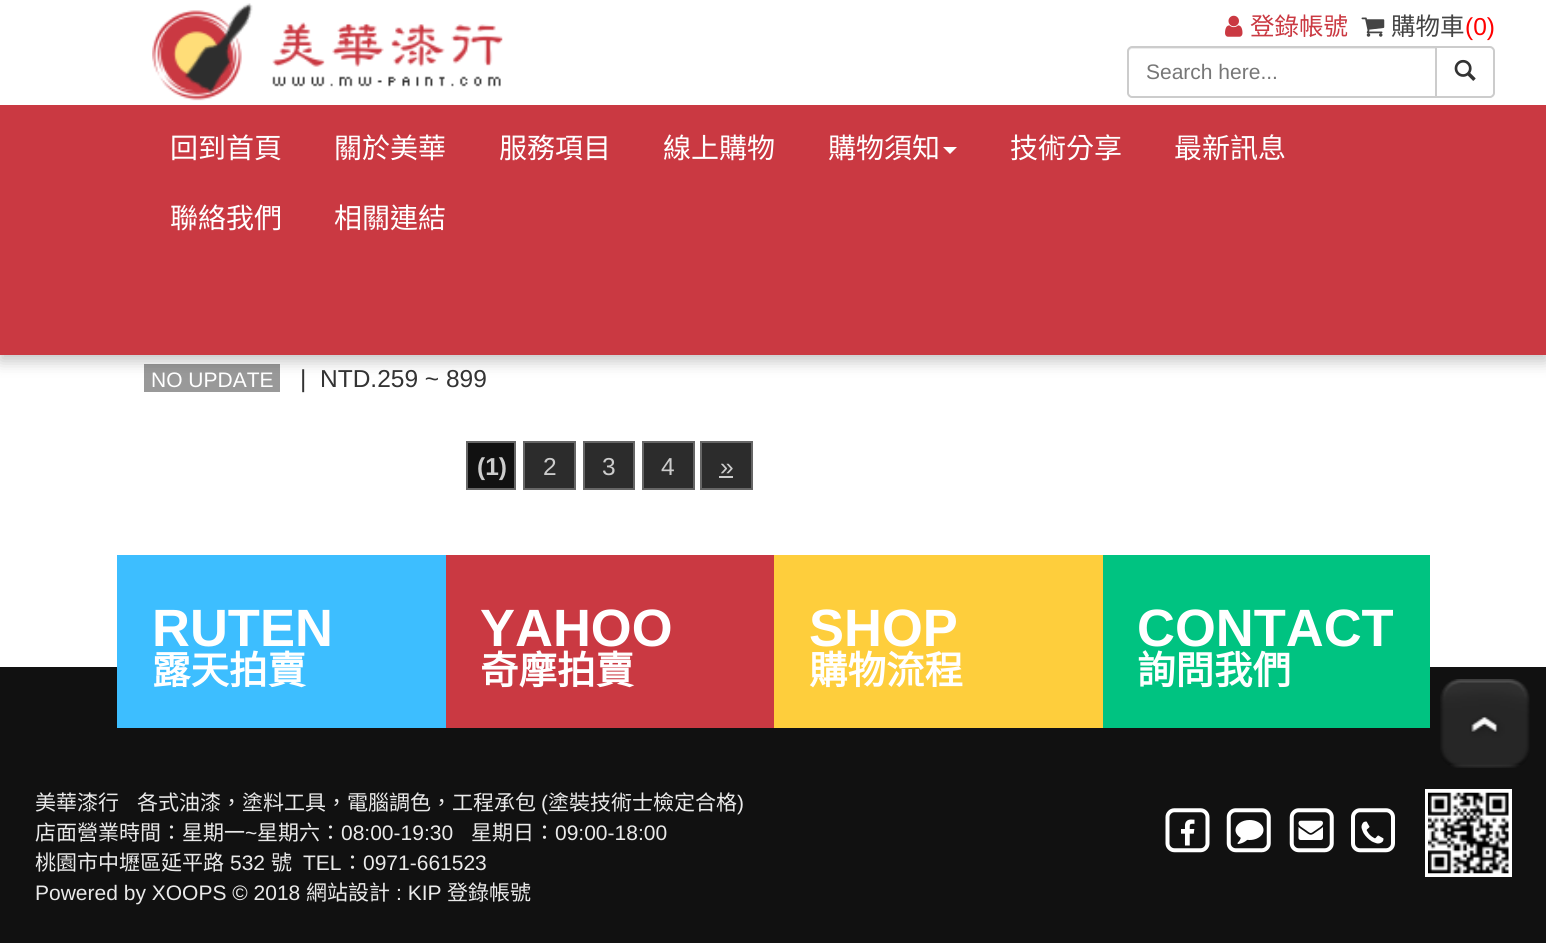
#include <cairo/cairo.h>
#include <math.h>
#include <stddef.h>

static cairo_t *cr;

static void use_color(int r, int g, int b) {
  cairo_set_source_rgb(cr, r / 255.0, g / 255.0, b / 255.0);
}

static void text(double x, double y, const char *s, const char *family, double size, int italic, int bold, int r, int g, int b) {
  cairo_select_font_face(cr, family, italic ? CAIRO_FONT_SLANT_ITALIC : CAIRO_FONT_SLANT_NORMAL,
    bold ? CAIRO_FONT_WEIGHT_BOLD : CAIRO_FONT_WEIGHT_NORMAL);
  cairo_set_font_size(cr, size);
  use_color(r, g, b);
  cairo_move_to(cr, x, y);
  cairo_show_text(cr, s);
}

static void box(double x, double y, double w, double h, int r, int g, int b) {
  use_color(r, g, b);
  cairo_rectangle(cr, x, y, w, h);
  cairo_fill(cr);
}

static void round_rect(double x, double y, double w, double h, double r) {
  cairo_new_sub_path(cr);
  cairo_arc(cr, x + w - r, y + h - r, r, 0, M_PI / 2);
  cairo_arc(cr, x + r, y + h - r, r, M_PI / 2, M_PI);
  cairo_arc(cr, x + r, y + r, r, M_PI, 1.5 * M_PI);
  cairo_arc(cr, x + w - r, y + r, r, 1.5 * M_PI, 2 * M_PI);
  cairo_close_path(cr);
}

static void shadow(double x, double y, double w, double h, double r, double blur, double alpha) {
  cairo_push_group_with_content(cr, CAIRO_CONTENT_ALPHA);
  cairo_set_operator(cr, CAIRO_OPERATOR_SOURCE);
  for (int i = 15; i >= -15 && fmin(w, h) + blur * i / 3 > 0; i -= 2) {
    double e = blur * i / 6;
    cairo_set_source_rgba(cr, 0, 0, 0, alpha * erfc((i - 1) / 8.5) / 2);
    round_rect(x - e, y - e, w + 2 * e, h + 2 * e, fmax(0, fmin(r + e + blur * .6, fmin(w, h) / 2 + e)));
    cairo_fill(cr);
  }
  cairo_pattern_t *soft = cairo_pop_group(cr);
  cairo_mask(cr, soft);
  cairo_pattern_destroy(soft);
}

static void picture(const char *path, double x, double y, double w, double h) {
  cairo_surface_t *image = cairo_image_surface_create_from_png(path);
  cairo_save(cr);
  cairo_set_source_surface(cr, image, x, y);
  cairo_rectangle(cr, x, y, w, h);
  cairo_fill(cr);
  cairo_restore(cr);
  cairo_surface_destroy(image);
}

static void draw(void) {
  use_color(255, 255, 255);
  cairo_paint(cr);
  box(144, 364, 136, 28, 153, 153, 153);
  use_color(0, 0, 0);
  shadow(0, 5, 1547, 356, 0, 8, 0.24);
  box(0, 105, 1546, 250, 202, 57, 66);
  box(0, 0, 1546, 105, 255, 255, 255);
  picture("img_01.png", 152, 3, 351, 98);
  picture("img_02.png", 1225, 15, 18, 22);
  picture("img_03.png", 1361, 17, 24, 20);
  cairo_new_path(cr);
  cairo_move_to(cr, 1436, 47);
  cairo_line_to(cr, 1490, 47);
  cairo_curve_to(cr, 1492, 47, 1494, 49, 1494, 51);
  cairo_line_to(cr, 1494, 93);
  cairo_curve_to(cr, 1494, 95, 1492, 97, 1490, 97);
  cairo_line_to(cr, 1436, 97);
  cairo_close_path(cr);
  use_color(204, 204, 204);
  cairo_stroke(cr);
  use_color(255, 255, 255);
  cairo_new_path(cr);
  cairo_move_to(cr, 1132, 46);
  cairo_line_to(cr, 1437, 46);
  cairo_line_to(cr, 1437, 98);
  cairo_line_to(cr, 1132, 98);
  cairo_curve_to(cr, 1129, 98, 1127, 96, 1127, 93);
  cairo_line_to(cr, 1127, 51);
  cairo_curve_to(cr, 1127, 48, 1129, 46, 1132, 46);
  cairo_close_path(cr);
  cairo_fill(cr);
  use_color(236, 236, 236);
  cairo_new_path(cr);
  cairo_move_to(cr, 1132, 49);
  cairo_line_to(cr, 1435, 49);
  cairo_line_to(cr, 1435, 47);
  cairo_line_to(cr, 1133, 47);
  cairo_curve_to(cr, 1131, 47, 1129, 49, 1129, 51);
  cairo_line_to(cr, 1129, 52);
  cairo_curve_to(cr, 1129, 51, 1130, 49, 1132, 49);
  cairo_close_path(cr);
  cairo_fill(cr);
  cairo_new_path(cr);
  cairo_move_to(cr, 1132, 47);
  cairo_line_to(cr, 1436, 47);
  cairo_line_to(cr, 1436, 97);
  cairo_line_to(cr, 1132, 97);
  cairo_curve_to(cr, 1130, 97, 1128, 95, 1128, 93);
  cairo_line_to(cr, 1128, 51);
  cairo_curve_to(cr, 1128, 49, 1130, 47, 1132, 47);
  cairo_close_path(cr);
  use_color(204, 204, 204);
  cairo_stroke(cr);
  picture("img_04.png", 1454, 59, 22, 22);
  use_color(255, 255, 255);
  cairo_new_path(cr);
  cairo_move_to(cr, 943, 147);
  cairo_line_to(cr, 957, 147);
  cairo_line_to(cr, 950, 154);
  cairo_close_path(cr);
  cairo_fill(cr);
  use_color(17, 17, 17);
  cairo_rectangle(cr, 467, 442, 48, 47);
  cairo_fill_preserve(cr);
  use_color(102, 102, 102);
  cairo_stroke(cr);
  use_color(44, 44, 44);
  cairo_rectangle(cr, 524, 442, 51, 47);
  cairo_fill_preserve(cr);
  use_color(102, 102, 102);
  cairo_stroke(cr);
  use_color(44, 44, 44);
  cairo_rectangle(cr, 584, 442, 50, 47);
  cairo_fill_preserve(cr);
  use_color(102, 102, 102);
  cairo_stroke(cr);
  use_color(44, 44, 44);
  cairo_rectangle(cr, 643, 442, 51, 47);
  cairo_fill_preserve(cr);
  use_color(102, 102, 102);
  cairo_stroke(cr);
  use_color(44, 44, 44);
  cairo_rectangle(cr, 701, 442, 51, 47);
  cairo_fill_preserve(cr);
  use_color(102, 102, 102);
  cairo_stroke(cr);
  box(719, 476, 14, 2, 204, 204, 204);
  box(0, 667, 1546, 276, 17, 17, 17);
  box(117, 555, 329, 173, 61, 190, 255);
  box(446, 555, 328, 173, 202, 57, 66);
  box(774, 555, 329, 173, 254, 206, 60);
  box(1103, 555, 327, 173, 0, 195, 129);
  picture("img_05.png", 1440, 679, 90, 89);
  cairo_rectangle(cr, 1427, 791, 83, 84);
  use_color(255, 255, 255);
  cairo_set_line_width(cr, 4);
  cairo_stroke(cr);
  picture("img_06.png", 1165, 808, 45, 45);
  picture("img_07.png", 1181, 819, 14, 27);
  picture("img_08.png", 1226, 808, 45, 45);
  picture("img_09.png", 1235, 820, 29, 24);
  picture("img_08.png", 1289, 808, 45, 45);
  picture("img_10.png", 1298, 820, 25, 20);
  picture("img_11.png", 1351, 808, 44, 45);
  picture("img_12.png", 1361, 821, 23, 23);
  picture("img_13.png", 1428, 792, 81, 82);
  text(1250, 35, "登錄帳號", "Noto Sans CJK TC", 24.5, 0, 0, 202, 57, 66);
  text(1391, 35, "購物車", "Noto Sans CJK TC", 24.5, 0, 0, 68, 68, 68);
  text(1465, 35, "(0)", "Liberation Sans", 24.5, 0, 0, 255, 0, 0);
  text(1146, 79, "Search here...", "Liberation Sans", 21, 0, 0, 119, 119, 119);
  text(170, 158, "回到首頁", "Noto Sans CJK TC", 28, 0, 0, 255, 255, 255);
  text(334, 158, "關於美華", "Noto Sans CJK TC", 28, 0, 0, 255, 255, 255);
  text(499, 158, "服務項目", "Noto Sans CJK TC", 28, 0, 0, 255, 255, 255);
  text(663, 158, "線上購物", "Noto Sans CJK TC", 28, 0, 0, 255, 255, 255);
  text(828, 158, "購物須知", "Noto Sans CJK TC", 28, 0, 0, 255, 255, 255);
  text(1010, 158, "技術分享", "Noto Sans CJK TC", 28, 0, 0, 255, 255, 255);
  text(1174, 158, "最新訊息", "Noto Sans CJK TC", 28, 0, 0, 255, 255, 255);
  text(170, 228, "聯絡我們", "Noto Sans CJK TC", 28, 0, 0, 255, 255, 255);
  text(334, 228, "相關連結", "Noto Sans CJK TC", 28, 0, 0, 255, 255, 255);
  text(151, 387, "NO UPDATE", "Liberation Sans", 21, 0, 0, 255, 255, 255);
  text(300, 387, "|  NTD.259 ~ 899", "Liberation Sans", 24.5, 0, 0, 51, 51, 51);
  text(477, 475, "(1)", "Liberation Sans", 24.5, 0, 1, 204, 204, 204);
  text(543, 475, "2", "Liberation Sans", 24.5, 0, 0, 204, 204, 204);
  text(602, 475, "3", "Liberation Sans", 24.5, 0, 0, 204, 204, 204);
  text(661, 475, "4", "Liberation Sans", 24.5, 0, 0, 204, 204, 204);
  text(720, 475, "»", "Liberation Sans", 24.5, 0, 0, 204, 204, 204);
  text(152, 646, "RUTEN", "Liberation Sans", 52.5, 0, 1, 255, 255, 255);
  text(152, 684, "露天拍賣", "Noto Sans CJK TC", 38.5, 0, 1, 255, 255, 255);
  text(480, 646, "YAHOO", "Liberation Sans", 52.5, 0, 1, 255, 255, 255);
  text(480, 684, "奇摩拍賣", "Noto Sans CJK TC", 38.5, 0, 1, 255, 255, 255);
  text(809, 646, "SHOP", "Liberation Sans", 52.5, 0, 1, 255, 255, 255);
  text(809, 684, "購物流程", "Noto Sans CJK TC", 38.5, 0, 1, 255, 255, 255);
  text(1137, 646, "CONTACT", "Liberation Sans", 52.5, 0, 1, 255, 255, 255);
  text(1137, 684, "詢問我們", "Noto Sans CJK TC", 38.5, 0, 1, 255, 255, 255);
  text(35, 810, "美華漆行", "Noto Sans CJK TC", 21, 0, 0, 234, 234, 234);
  text(137, 810, "各式油漆，塗料工具，電腦調色，工程承包", "Noto Sans CJK TC", 21, 0, 0, 234, 234, 234);
  text(541, 810, "(", "Liberation Sans", 21, 0, 0, 234, 234, 234);
  text(548, 810, "塗裝技術士檢定合格", "Noto Sans CJK TC", 21, 0, 0, 234, 234, 234);
  text(737, 810, ")", "Liberation Sans", 21, 0, 0, 234, 234, 234);
  text(35, 840, "店面營業時間：星期一", "Noto Sans CJK TC", 21, 0, 0, 234, 234, 234);
  text(245, 840, "~", "Liberation Sans", 21, 0, 0, 234, 234, 234);
  text(257, 840, "星期六：", "Noto Sans CJK TC", 21, 0, 0, 234, 234, 234);
  text(341, 840, "08:00-19:30", "Liberation Sans", 21, 0, 0, 234, 234, 234);
  text(471, 840, "星期日：", "Noto Sans CJK TC", 21, 0, 0, 234, 234, 234);
  text(555, 840, "09:00-18:00", "Liberation Sans", 21, 0, 0, 234, 234, 234);
  text(35, 870, "桃園市中壢區延平路", "Noto Sans CJK TC", 21, 0, 0, 234, 234, 234);
  text(230, 870, "532", "Liberation Sans", 21, 0, 0, 234, 234, 234);
  text(271, 870, "號", "Noto Sans CJK TC", 21, 0, 0, 234, 234, 234);
  text(303, 870, "TEL", "Liberation Sans", 21, 0, 0, 234, 234, 234);
  text(342, 870, "：", "Noto Sans CJK TC", 21, 0, 0, 234, 234, 234);
  text(363, 870, "0971-661523", "Liberation Sans", 21, 0, 0, 234, 234, 234);
  text(35, 900, "Powered by XOOPS © 2018", "Liberation Sans", 21, 0, 0, 234, 234, 234);
  text(306, 900, "網站設計", "Noto Sans CJK TC", 21, 0, 0, 234, 234, 234);
  text(396, 900, ": KIP", "Liberation Sans", 21, 0, 0, 234, 234, 234);
  text(447, 900, "登錄帳號", "Noto Sans CJK TC", 21, 0, 0, 234, 234, 234);
}

int main(void) {
  cairo_surface_t *surface = cairo_image_surface_create(CAIRO_FORMAT_RGB24, 1546, 943);
  cr = cairo_create(surface);
  cairo_font_options_t *options = cairo_font_options_create();
  cairo_font_options_set_hint_metrics(options, CAIRO_HINT_METRICS_OFF);
  cairo_font_options_set_hint_style(options, CAIRO_HINT_STYLE_NONE);
  cairo_set_font_options(cr, options);
  cairo_set_miter_limit(cr, 4);
  draw();
  cairo_surface_write_to_png(surface, "out.png");
  cairo_font_options_destroy(options);
  cairo_destroy(cr);
  cairo_surface_destroy(surface);
  return 0;
}
